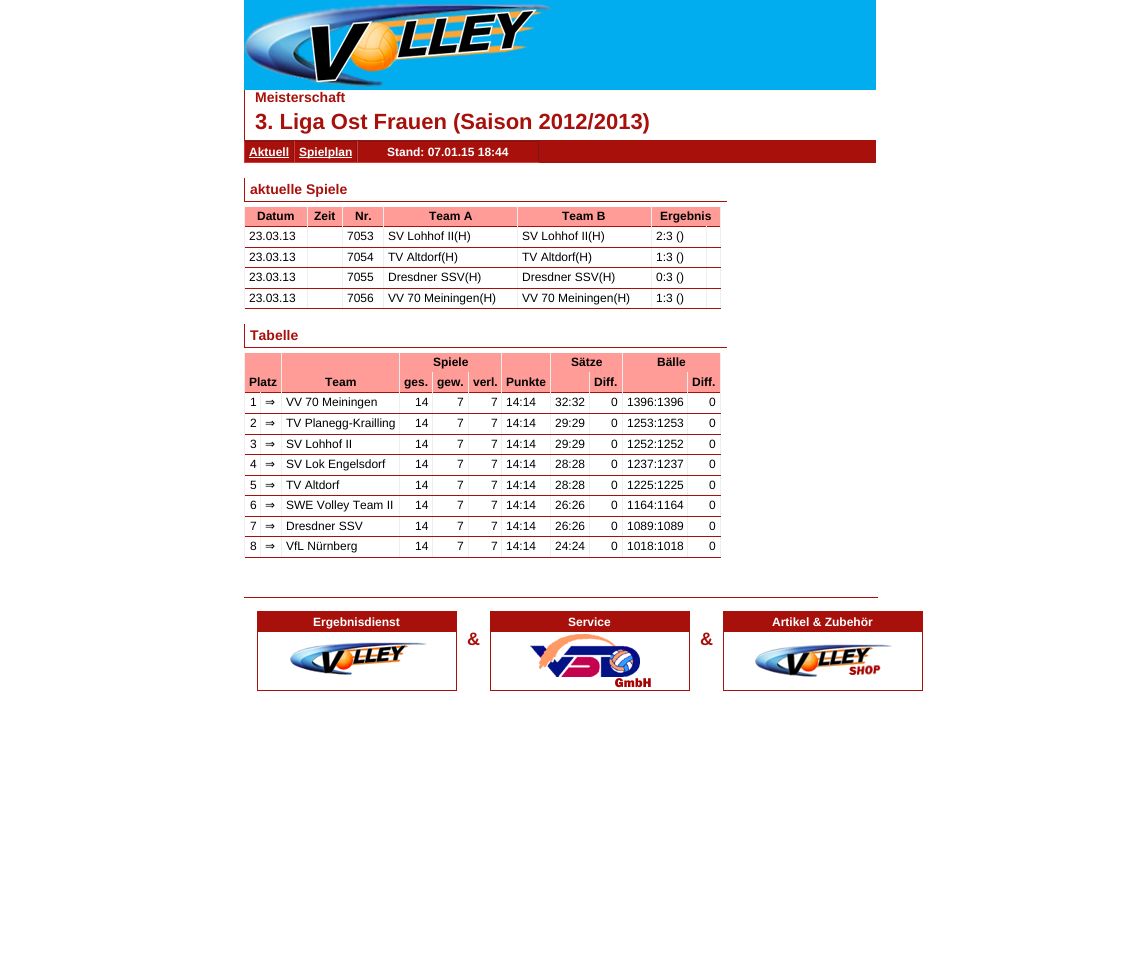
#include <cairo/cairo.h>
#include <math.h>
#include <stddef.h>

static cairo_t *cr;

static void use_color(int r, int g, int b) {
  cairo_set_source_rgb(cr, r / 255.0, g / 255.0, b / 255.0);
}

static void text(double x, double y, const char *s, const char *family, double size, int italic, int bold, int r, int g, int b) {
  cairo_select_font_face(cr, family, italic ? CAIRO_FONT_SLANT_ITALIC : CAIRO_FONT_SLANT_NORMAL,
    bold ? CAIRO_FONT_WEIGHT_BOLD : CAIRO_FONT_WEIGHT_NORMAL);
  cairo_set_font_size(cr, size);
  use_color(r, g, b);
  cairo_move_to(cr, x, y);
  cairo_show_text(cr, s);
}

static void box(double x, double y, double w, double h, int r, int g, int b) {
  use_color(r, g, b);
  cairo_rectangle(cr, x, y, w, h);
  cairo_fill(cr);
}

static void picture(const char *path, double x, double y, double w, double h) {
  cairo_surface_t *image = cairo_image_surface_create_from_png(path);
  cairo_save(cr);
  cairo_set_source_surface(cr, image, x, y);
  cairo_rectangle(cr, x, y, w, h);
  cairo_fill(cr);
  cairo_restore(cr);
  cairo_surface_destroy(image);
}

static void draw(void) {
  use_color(255, 255, 255);
  cairo_paint(cr);
  box(244, 0, 632, 90, 1, 173, 239);
  picture("img_01.png", 244, 3, 309, 84);
  box(244, 140, 632, 1, 167, 16, 11);
  box(244, 90, 1, 51, 167, 16, 11);
  box(245, 141, 631, 22, 167, 16, 11);
  box(244, 141, 295, 1, 113, 28, 25);
  box(293, 141, 1, 22, 113, 28, 25);
  box(244, 162, 50, 1, 220, 56, 59);
  box(244, 141, 1, 22, 220, 56, 59);
  box(249, 157, 40, 1, 255, 255, 255);
  box(356, 141, 1, 22, 113, 28, 25);
  box(294, 162, 63, 1, 220, 56, 59);
  box(294, 141, 1, 22, 220, 56, 59);
  box(299, 157, 53, 1, 255, 255, 255);
  box(538, 141, 1, 22, 113, 28, 25);
  box(357, 162, 182, 1, 220, 56, 59);
  box(357, 141, 1, 22, 220, 56, 59);
  box(244, 201, 483, 1, 167, 16, 11);
  box(244, 178, 1, 24, 167, 16, 11);
  box(245, 207, 62, 19, 255, 156, 151);
  box(308, 207, 34, 19, 255, 156, 151);
  box(343, 207, 40, 19, 255, 156, 151);
  box(384, 207, 133, 19, 255, 156, 151);
  box(518, 207, 133, 19, 255, 156, 151);
  box(652, 207, 68, 19, 255, 156, 151);
  box(244, 226, 477, 1, 167, 16, 11);
  box(720, 247, 1, 62, 238, 238, 238);
  box(720, 206, 1, 42, 238, 238, 238);
  box(706, 308, 15, 1, 167, 16, 11);
  box(706, 288, 1, 21, 238, 238, 238);
  box(706, 288, 15, 1, 167, 16, 11);
  box(706, 267, 1, 22, 238, 238, 238);
  box(706, 267, 15, 1, 167, 16, 11);
  box(706, 247, 1, 21, 238, 238, 238);
  box(706, 247, 15, 1, 167, 16, 11);
  box(706, 226, 1, 22, 238, 238, 238);
  box(651, 308, 56, 1, 167, 16, 11);
  box(651, 288, 1, 21, 238, 238, 238);
  box(651, 288, 56, 1, 167, 16, 11);
  box(651, 267, 1, 22, 238, 238, 238);
  box(651, 267, 56, 1, 167, 16, 11);
  box(651, 247, 1, 21, 238, 238, 238);
  box(651, 247, 56, 1, 167, 16, 11);
  box(651, 206, 1, 42, 238, 238, 238);
  box(517, 308, 135, 1, 167, 16, 11);
  box(517, 288, 1, 21, 238, 238, 238);
  box(517, 288, 135, 1, 167, 16, 11);
  box(517, 267, 1, 22, 238, 238, 238);
  box(517, 267, 135, 1, 167, 16, 11);
  box(517, 247, 1, 21, 238, 238, 238);
  box(517, 247, 135, 1, 167, 16, 11);
  box(517, 206, 1, 42, 238, 238, 238);
  box(383, 308, 135, 1, 167, 16, 11);
  box(383, 288, 1, 21, 238, 238, 238);
  box(383, 288, 135, 1, 167, 16, 11);
  box(383, 267, 1, 22, 238, 238, 238);
  box(383, 267, 135, 1, 167, 16, 11);
  box(383, 247, 1, 21, 238, 238, 238);
  box(383, 247, 135, 1, 167, 16, 11);
  box(383, 206, 1, 42, 238, 238, 238);
  box(342, 308, 42, 1, 167, 16, 11);
  box(342, 288, 1, 21, 238, 238, 238);
  box(342, 288, 42, 1, 167, 16, 11);
  box(342, 267, 1, 22, 238, 238, 238);
  box(342, 267, 42, 1, 167, 16, 11);
  box(342, 247, 1, 21, 238, 238, 238);
  box(342, 247, 42, 1, 167, 16, 11);
  box(342, 206, 1, 42, 238, 238, 238);
  box(307, 308, 36, 1, 167, 16, 11);
  box(307, 288, 1, 21, 238, 238, 238);
  box(307, 288, 36, 1, 167, 16, 11);
  box(307, 267, 1, 22, 238, 238, 238);
  box(307, 267, 36, 1, 167, 16, 11);
  box(307, 247, 1, 21, 238, 238, 238);
  box(307, 247, 36, 1, 167, 16, 11);
  box(307, 206, 1, 42, 238, 238, 238);
  box(244, 308, 64, 1, 167, 16, 11);
  box(244, 288, 1, 21, 238, 238, 238);
  box(244, 288, 64, 1, 167, 16, 11);
  box(244, 267, 1, 22, 238, 238, 238);
  box(244, 267, 64, 1, 167, 16, 11);
  box(244, 247, 1, 21, 238, 238, 238);
  box(244, 247, 64, 1, 167, 16, 11);
  box(244, 206, 1, 42, 238, 238, 238);
  box(244, 347, 483, 1, 167, 16, 11);
  box(244, 324, 1, 24, 167, 16, 11);
  box(245, 353, 36, 39, 255, 156, 151);
  box(282, 353, 117, 39, 255, 156, 151);
  box(400, 353, 101, 20, 255, 156, 151);
  box(502, 353, 48, 39, 255, 156, 151);
  box(551, 353, 71, 20, 255, 156, 151);
  box(623, 353, 97, 20, 255, 156, 151);
  box(400, 373, 32, 19, 255, 156, 151);
  box(433, 373, 35, 19, 255, 156, 151);
  box(469, 373, 32, 19, 255, 156, 151);
  box(551, 373, 38, 19, 255, 156, 151);
  box(590, 373, 32, 19, 255, 156, 151);
  box(623, 373, 64, 19, 255, 156, 151);
  box(688, 373, 32, 19, 255, 156, 151);
  box(244, 392, 477, 1, 167, 16, 11);
  box(720, 413, 1, 145, 238, 238, 238);
  box(720, 353, 1, 61, 238, 238, 238);
  box(687, 557, 34, 1, 167, 16, 11);
  box(687, 536, 1, 22, 238, 238, 238);
  box(687, 536, 34, 1, 167, 16, 11);
  box(687, 516, 1, 21, 238, 238, 238);
  box(687, 516, 34, 1, 167, 16, 11);
  box(687, 495, 1, 22, 238, 238, 238);
  box(687, 495, 34, 1, 167, 16, 11);
  box(687, 475, 1, 21, 238, 238, 238);
  box(687, 475, 34, 1, 167, 16, 11);
  box(687, 454, 1, 22, 238, 238, 238);
  box(687, 454, 34, 1, 167, 16, 11);
  box(687, 434, 1, 21, 238, 238, 238);
  box(687, 434, 34, 1, 167, 16, 11);
  box(687, 413, 1, 22, 238, 238, 238);
  box(687, 413, 34, 1, 167, 16, 11);
  box(687, 372, 1, 42, 238, 238, 238);
  box(622, 557, 66, 1, 167, 16, 11);
  box(622, 536, 1, 22, 238, 238, 238);
  box(622, 536, 66, 1, 167, 16, 11);
  box(622, 516, 1, 21, 238, 238, 238);
  box(622, 516, 66, 1, 167, 16, 11);
  box(622, 495, 1, 22, 238, 238, 238);
  box(622, 495, 66, 1, 167, 16, 11);
  box(622, 475, 1, 21, 238, 238, 238);
  box(622, 475, 66, 1, 167, 16, 11);
  box(622, 454, 1, 22, 238, 238, 238);
  box(622, 454, 66, 1, 167, 16, 11);
  box(622, 434, 1, 21, 238, 238, 238);
  box(622, 434, 66, 1, 167, 16, 11);
  box(622, 413, 1, 22, 238, 238, 238);
  box(622, 413, 66, 1, 167, 16, 11);
  box(622, 353, 1, 61, 238, 238, 238);
  box(589, 557, 34, 1, 167, 16, 11);
  box(589, 536, 1, 22, 238, 238, 238);
  box(589, 536, 34, 1, 167, 16, 11);
  box(589, 516, 1, 21, 238, 238, 238);
  box(589, 516, 34, 1, 167, 16, 11);
  box(589, 495, 1, 22, 238, 238, 238);
  box(589, 495, 34, 1, 167, 16, 11);
  box(589, 475, 1, 21, 238, 238, 238);
  box(589, 475, 34, 1, 167, 16, 11);
  box(589, 454, 1, 22, 238, 238, 238);
  box(589, 454, 34, 1, 167, 16, 11);
  box(589, 434, 1, 21, 238, 238, 238);
  box(589, 434, 34, 1, 167, 16, 11);
  box(589, 413, 1, 22, 238, 238, 238);
  box(589, 413, 34, 1, 167, 16, 11);
  box(589, 372, 1, 42, 238, 238, 238);
  box(550, 557, 40, 1, 167, 16, 11);
  box(550, 536, 1, 22, 238, 238, 238);
  box(550, 536, 40, 1, 167, 16, 11);
  box(550, 516, 1, 21, 238, 238, 238);
  box(550, 516, 40, 1, 167, 16, 11);
  box(550, 495, 1, 22, 238, 238, 238);
  box(550, 495, 40, 1, 167, 16, 11);
  box(550, 475, 1, 21, 238, 238, 238);
  box(550, 475, 40, 1, 167, 16, 11);
  box(550, 454, 1, 22, 238, 238, 238);
  box(550, 454, 40, 1, 167, 16, 11);
  box(550, 434, 1, 21, 238, 238, 238);
  box(550, 434, 40, 1, 167, 16, 11);
  box(550, 413, 1, 22, 238, 238, 238);
  box(550, 413, 40, 1, 167, 16, 11);
  box(550, 353, 1, 61, 238, 238, 238);
  box(501, 557, 50, 1, 167, 16, 11);
  box(501, 536, 1, 22, 238, 238, 238);
  box(501, 536, 50, 1, 167, 16, 11);
  box(501, 516, 1, 21, 238, 238, 238);
  box(501, 516, 50, 1, 167, 16, 11);
  box(501, 495, 1, 22, 238, 238, 238);
  box(501, 495, 50, 1, 167, 16, 11);
  box(501, 475, 1, 21, 238, 238, 238);
  box(501, 475, 50, 1, 167, 16, 11);
  box(501, 454, 1, 22, 238, 238, 238);
  box(501, 454, 50, 1, 167, 16, 11);
  box(501, 434, 1, 21, 238, 238, 238);
  box(501, 434, 50, 1, 167, 16, 11);
  box(501, 413, 1, 22, 238, 238, 238);
  box(501, 413, 50, 1, 167, 16, 11);
  box(501, 353, 1, 61, 238, 238, 238);
  box(468, 557, 34, 1, 167, 16, 11);
  box(468, 536, 1, 22, 238, 238, 238);
  box(468, 536, 34, 1, 167, 16, 11);
  box(468, 516, 1, 21, 238, 238, 238);
  box(468, 516, 34, 1, 167, 16, 11);
  box(468, 495, 1, 22, 238, 238, 238);
  box(468, 495, 34, 1, 167, 16, 11);
  box(468, 475, 1, 21, 238, 238, 238);
  box(468, 475, 34, 1, 167, 16, 11);
  box(468, 454, 1, 22, 238, 238, 238);
  box(468, 454, 34, 1, 167, 16, 11);
  box(468, 434, 1, 21, 238, 238, 238);
  box(468, 434, 34, 1, 167, 16, 11);
  box(468, 413, 1, 22, 238, 238, 238);
  box(468, 413, 34, 1, 167, 16, 11);
  box(468, 372, 1, 42, 238, 238, 238);
  box(432, 557, 37, 1, 167, 16, 11);
  box(432, 536, 1, 22, 238, 238, 238);
  box(432, 536, 37, 1, 167, 16, 11);
  box(432, 516, 1, 21, 238, 238, 238);
  box(432, 516, 37, 1, 167, 16, 11);
  box(432, 495, 1, 22, 238, 238, 238);
  box(432, 495, 37, 1, 167, 16, 11);
  box(432, 475, 1, 21, 238, 238, 238);
  box(432, 475, 37, 1, 167, 16, 11);
  box(432, 454, 1, 22, 238, 238, 238);
  box(432, 454, 37, 1, 167, 16, 11);
  box(432, 434, 1, 21, 238, 238, 238);
  box(432, 434, 37, 1, 167, 16, 11);
  box(432, 413, 1, 22, 238, 238, 238);
  box(432, 413, 37, 1, 167, 16, 11);
  box(432, 372, 1, 42, 238, 238, 238);
  box(399, 557, 34, 1, 167, 16, 11);
  box(399, 536, 1, 22, 238, 238, 238);
  box(399, 536, 34, 1, 167, 16, 11);
  box(399, 516, 1, 21, 238, 238, 238);
  box(399, 516, 34, 1, 167, 16, 11);
  box(399, 495, 1, 22, 238, 238, 238);
  box(399, 495, 34, 1, 167, 16, 11);
  box(399, 475, 1, 21, 238, 238, 238);
  box(399, 475, 34, 1, 167, 16, 11);
  box(399, 454, 1, 22, 238, 238, 238);
  box(399, 454, 34, 1, 167, 16, 11);
  box(399, 434, 1, 21, 238, 238, 238);
  box(399, 434, 34, 1, 167, 16, 11);
  box(399, 413, 1, 22, 238, 238, 238);
  box(399, 413, 34, 1, 167, 16, 11);
  box(399, 353, 1, 61, 238, 238, 238);
  box(281, 557, 119, 1, 167, 16, 11);
  box(281, 536, 1, 22, 238, 238, 238);
  box(281, 536, 119, 1, 167, 16, 11);
  box(281, 516, 1, 21, 238, 238, 238);
  box(281, 516, 119, 1, 167, 16, 11);
  box(281, 495, 1, 22, 238, 238, 238);
  box(281, 495, 119, 1, 167, 16, 11);
  box(281, 475, 1, 21, 238, 238, 238);
  box(281, 475, 119, 1, 167, 16, 11);
  box(281, 454, 1, 22, 238, 238, 238);
  box(281, 454, 119, 1, 167, 16, 11);
  box(281, 434, 1, 21, 238, 238, 238);
  box(281, 434, 119, 1, 167, 16, 11);
  box(281, 413, 1, 22, 238, 238, 238);
  box(281, 413, 119, 1, 167, 16, 11);
  box(281, 353, 1, 61, 238, 238, 238);
  box(260, 557, 22, 1, 167, 16, 11);
  box(260, 536, 1, 22, 238, 238, 238);
  box(260, 536, 22, 1, 167, 16, 11);
  box(260, 516, 1, 21, 238, 238, 238);
  box(260, 516, 22, 1, 167, 16, 11);
  box(260, 495, 1, 22, 238, 238, 238);
  box(260, 495, 22, 1, 167, 16, 11);
  box(260, 475, 1, 21, 238, 238, 238);
  box(260, 475, 22, 1, 167, 16, 11);
  box(260, 454, 1, 22, 238, 238, 238);
  box(260, 454, 22, 1, 167, 16, 11);
  box(260, 434, 1, 21, 238, 238, 238);
  box(260, 434, 22, 1, 167, 16, 11);
  box(260, 413, 1, 22, 238, 238, 238);
  box(260, 413, 22, 1, 167, 16, 11);
  box(260, 392, 1, 22, 238, 238, 238);
  box(244, 557, 17, 1, 167, 16, 11);
  box(244, 536, 1, 22, 238, 238, 238);
  box(244, 536, 17, 1, 167, 16, 11);
  box(244, 516, 1, 21, 238, 238, 238);
  box(244, 516, 17, 1, 167, 16, 11);
  box(244, 495, 1, 22, 238, 238, 238);
  box(244, 495, 17, 1, 167, 16, 11);
  box(244, 475, 1, 21, 238, 238, 238);
  box(244, 475, 17, 1, 167, 16, 11);
  box(244, 454, 1, 22, 238, 238, 238);
  box(244, 454, 17, 1, 167, 16, 11);
  box(244, 434, 1, 21, 238, 238, 238);
  box(244, 434, 17, 1, 167, 16, 11);
  box(244, 413, 1, 22, 238, 238, 238);
  box(244, 413, 17, 1, 167, 16, 11);
  box(244, 353, 1, 61, 238, 238, 238);
  box(244, 597, 634, 1, 167, 16, 11);
  cairo_rectangle(cr, 257.5, 611.5, 199, 79);
  cairo_set_line_width(cr, 1);
  cairo_stroke(cr);
  box(258, 612, 198, 20, 167, 16, 11);
  picture("img_02.png", 290, 642, 137, 33);
  cairo_rectangle(cr, 490.5, 611.5, 199, 79);
  cairo_stroke(cr);
  box(491, 612, 198, 20, 167, 16, 11);
  picture("img_03.png", 530, 634, 121, 54);
  cairo_rectangle(cr, 723.5, 611.5, 199, 79);
  cairo_stroke(cr);
  box(724, 612, 198, 20, 167, 16, 11);
  picture("img_04.png", 755, 644, 137, 33);
  text(255, 102, "Meisterschaft", "Liberation Sans", 14, 0, 1, 167, 16, 11);
  text(255, 129, "3. Liga Ost Frauen (Saison 2012/2013)", "Liberation Sans", 22, 0, 1, 167, 16, 11);
  text(249, 156, "Aktuell", "Liberation Sans", 12, 0, 1, 255, 255, 255);
  text(299, 156, "Spielplan", "Liberation Sans", 12, 0, 1, 255, 255, 255);
  text(387, 156, "Stand: 07.01.15 18:44", "Liberation Sans", 12, 0, 1, 255, 255, 255);
  text(250, 194, "aktuelle Spiele", "Liberation Sans", 14, 0, 1, 167, 16, 11);
  text(257, 220, "Datum", "Liberation Sans", 12, 0, 1, 0, 0, 0);
  text(314, 220, "Zeit", "Liberation Sans", 12, 0, 1, 0, 0, 0);
  text(355, 220, "Nr.", "Liberation Sans", 12, 0, 1, 0, 0, 0);
  text(429, 220, "Team A", "Liberation Sans", 12, 0, 1, 0, 0, 0);
  text(562, 220, "Team B", "Liberation Sans", 12, 0, 1, 0, 0, 0);
  text(660, 220, "Ergebnis", "Liberation Sans", 12, 0, 1, 0, 0, 0);
  text(249, 240, "23.03.13", "Liberation Sans", 12, 0, 0, 0, 0, 0);
  text(347, 240, "7053", "Liberation Sans", 12, 0, 0, 0, 0, 0);
  text(388, 240, "SV Lohhof II(H)", "Liberation Sans", 12, 0, 0, 0, 0, 0);
  text(522, 240, "SV Lohhof II(H)", "Liberation Sans", 12, 0, 0, 0, 0, 0);
  text(656, 240, "2:3 ()", "Liberation Sans", 12, 0, 0, 0, 0, 0);
  text(249, 261, "23.03.13", "Liberation Sans", 12, 0, 0, 0, 0, 0);
  text(347, 261, "7054", "Liberation Sans", 12, 0, 0, 0, 0, 0);
  text(388, 261, "TV Altdorf(H)", "Liberation Sans", 12, 0, 0, 0, 0, 0);
  text(522, 261, "TV Altdorf(H)", "Liberation Sans", 12, 0, 0, 0, 0, 0);
  text(656, 261, "1:3 ()", "Liberation Sans", 12, 0, 0, 0, 0, 0);
  text(249, 281, "23.03.13", "Liberation Sans", 12, 0, 0, 0, 0, 0);
  text(347, 281, "7055", "Liberation Sans", 12, 0, 0, 0, 0, 0);
  text(388, 281, "Dresdner SSV(H)", "Liberation Sans", 12, 0, 0, 0, 0, 0);
  text(522, 281, "Dresdner SSV(H)", "Liberation Sans", 12, 0, 0, 0, 0, 0);
  text(656, 281, "0:3 ()", "Liberation Sans", 12, 0, 0, 0, 0, 0);
  text(249, 302, "23.03.13", "Liberation Sans", 12, 0, 0, 0, 0, 0);
  text(347, 302, "7056", "Liberation Sans", 12, 0, 0, 0, 0, 0);
  text(388, 302, "VV 70 Meiningen(H)", "Liberation Sans", 12, 0, 0, 0, 0, 0);
  text(522, 302, "VV 70 Meiningen(H)", "Liberation Sans", 12, 0, 0, 0, 0, 0);
  text(656, 302, "1:3 ()", "Liberation Sans", 12, 0, 0, 0, 0, 0);
  text(250, 340, "Tabelle", "Liberation Sans", 14, 0, 1, 167, 16, 11);
  text(433, 366, "Spiele", "Liberation Sans", 12, 0, 1, 0, 0, 0);
  text(571, 366, "Sätze", "Liberation Sans", 12, 0, 1, 0, 0, 0);
  text(657, 366, "Bälle", "Liberation Sans", 12, 0, 1, 0, 0, 0);
  text(249, 386, "Platz", "Liberation Sans", 12, 0, 1, 0, 0, 0);
  text(325, 386, "Team", "Liberation Sans", 12, 0, 1, 0, 0, 0);
  text(404, 386, "ges.", "Liberation Sans", 12, 0, 1, 0, 0, 0);
  text(437, 386, "gew.", "Liberation Sans", 12, 0, 1, 0, 0, 0);
  text(473, 386, "verl.", "Liberation Sans", 12, 0, 1, 0, 0, 0);
  text(506, 386, "Punkte", "Liberation Sans", 12, 0, 1, 0, 0, 0);
  text(594, 386, "Diff.", "Liberation Sans", 12, 0, 1, 0, 0, 0);
  text(692, 386, "Diff.", "Liberation Sans", 12, 0, 1, 0, 0, 0);
  text(250, 406, "1", "Liberation Sans", 12, 0, 0, 0, 0, 0);
  text(265, 406, "⇒", "DejaVu Sans", 12, 0, 0, 0, 0, 0);
  text(286, 406, "VV 70 Meiningen", "Liberation Sans", 12, 0, 0, 0, 0, 0);
  text(415, 406, "14", "Liberation Sans", 12, 0, 0, 0, 0, 0);
  text(457, 406, "7", "Liberation Sans", 12, 0, 0, 0, 0, 0);
  text(491, 406, "7", "Liberation Sans", 12, 0, 0, 0, 0, 0);
  text(506, 406, "14:14", "Liberation Sans", 12, 0, 0, 0, 0, 0);
  text(555, 406, "32:32", "Liberation Sans", 12, 0, 0, 0, 0, 0);
  text(611, 406, "0", "Liberation Sans", 12, 0, 0, 0, 0, 0);
  text(627, 406, "1396:1396", "Liberation Sans", 12, 0, 0, 0, 0, 0);
  text(709, 406, "0", "Liberation Sans", 12, 0, 0, 0, 0, 0);
  text(250, 427, "2", "Liberation Sans", 12, 0, 0, 0, 0, 0);
  text(265, 427, "⇒", "DejaVu Sans", 12, 0, 0, 0, 0, 0);
  text(286, 427, "TV Planegg-Krailling", "Liberation Sans", 12, 0, 0, 0, 0, 0);
  text(415, 427, "14", "Liberation Sans", 12, 0, 0, 0, 0, 0);
  text(457, 427, "7", "Liberation Sans", 12, 0, 0, 0, 0, 0);
  text(491, 427, "7", "Liberation Sans", 12, 0, 0, 0, 0, 0);
  text(506, 427, "14:14", "Liberation Sans", 12, 0, 0, 0, 0, 0);
  text(555, 427, "29:29", "Liberation Sans", 12, 0, 0, 0, 0, 0);
  text(611, 427, "0", "Liberation Sans", 12, 0, 0, 0, 0, 0);
  text(627, 427, "1253:1253", "Liberation Sans", 12, 0, 0, 0, 0, 0);
  text(709, 427, "0", "Liberation Sans", 12, 0, 0, 0, 0, 0);
  text(250, 448, "3", "Liberation Sans", 12, 0, 0, 0, 0, 0);
  text(265, 448, "⇒", "DejaVu Sans", 12, 0, 0, 0, 0, 0);
  text(286, 448, "SV Lohhof II", "Liberation Sans", 12, 0, 0, 0, 0, 0);
  text(415, 448, "14", "Liberation Sans", 12, 0, 0, 0, 0, 0);
  text(457, 448, "7", "Liberation Sans", 12, 0, 0, 0, 0, 0);
  text(491, 448, "7", "Liberation Sans", 12, 0, 0, 0, 0, 0);
  text(506, 448, "14:14", "Liberation Sans", 12, 0, 0, 0, 0, 0);
  text(555, 448, "29:29", "Liberation Sans", 12, 0, 0, 0, 0, 0);
  text(611, 448, "0", "Liberation Sans", 12, 0, 0, 0, 0, 0);
  text(627, 448, "1252:1252", "Liberation Sans", 12, 0, 0, 0, 0, 0);
  text(709, 448, "0", "Liberation Sans", 12, 0, 0, 0, 0, 0);
  text(250, 468, "4", "Liberation Sans", 12, 0, 0, 0, 0, 0);
  text(265, 468, "⇒", "DejaVu Sans", 12, 0, 0, 0, 0, 0);
  text(286, 468, "SV Lok Engelsdorf", "Liberation Sans", 12, 0, 0, 0, 0, 0);
  text(415, 468, "14", "Liberation Sans", 12, 0, 0, 0, 0, 0);
  text(457, 468, "7", "Liberation Sans", 12, 0, 0, 0, 0, 0);
  text(491, 468, "7", "Liberation Sans", 12, 0, 0, 0, 0, 0);
  text(506, 468, "14:14", "Liberation Sans", 12, 0, 0, 0, 0, 0);
  text(555, 468, "28:28", "Liberation Sans", 12, 0, 0, 0, 0, 0);
  text(611, 468, "0", "Liberation Sans", 12, 0, 0, 0, 0, 0);
  text(627, 468, "1237:1237", "Liberation Sans", 12, 0, 0, 0, 0, 0);
  text(709, 468, "0", "Liberation Sans", 12, 0, 0, 0, 0, 0);
  text(250, 489, "5", "Liberation Sans", 12, 0, 0, 0, 0, 0);
  text(265, 489, "⇒", "DejaVu Sans", 12, 0, 0, 0, 0, 0);
  text(286, 489, "TV Altdorf", "Liberation Sans", 12, 0, 0, 0, 0, 0);
  text(415, 489, "14", "Liberation Sans", 12, 0, 0, 0, 0, 0);
  text(457, 489, "7", "Liberation Sans", 12, 0, 0, 0, 0, 0);
  text(491, 489, "7", "Liberation Sans", 12, 0, 0, 0, 0, 0);
  text(506, 489, "14:14", "Liberation Sans", 12, 0, 0, 0, 0, 0);
  text(555, 489, "28:28", "Liberation Sans", 12, 0, 0, 0, 0, 0);
  text(611, 489, "0", "Liberation Sans", 12, 0, 0, 0, 0, 0);
  text(627, 489, "1225:1225", "Liberation Sans", 12, 0, 0, 0, 0, 0);
  text(709, 489, "0", "Liberation Sans", 12, 0, 0, 0, 0, 0);
  text(250, 509, "6", "Liberation Sans", 12, 0, 0, 0, 0, 0);
  text(265, 509, "⇒", "DejaVu Sans", 12, 0, 0, 0, 0, 0);
  text(286, 509, "SWE Volley Team II", "Liberation Sans", 12, 0, 0, 0, 0, 0);
  text(415, 509, "14", "Liberation Sans", 12, 0, 0, 0, 0, 0);
  text(457, 509, "7", "Liberation Sans", 12, 0, 0, 0, 0, 0);
  text(491, 509, "7", "Liberation Sans", 12, 0, 0, 0, 0, 0);
  text(506, 509, "14:14", "Liberation Sans", 12, 0, 0, 0, 0, 0);
  text(555, 509, "26:26", "Liberation Sans", 12, 0, 0, 0, 0, 0);
  text(611, 509, "0", "Liberation Sans", 12, 0, 0, 0, 0, 0);
  text(627, 509, "1164:1164", "Liberation Sans", 12, 0, 0, 0, 0, 0);
  text(709, 509, "0", "Liberation Sans", 12, 0, 0, 0, 0, 0);
  text(250, 530, "7", "Liberation Sans", 12, 0, 0, 0, 0, 0);
  text(265, 530, "⇒", "DejaVu Sans", 12, 0, 0, 0, 0, 0);
  text(286, 530, "Dresdner SSV", "Liberation Sans", 12, 0, 0, 0, 0, 0);
  text(415, 530, "14", "Liberation Sans", 12, 0, 0, 0, 0, 0);
  text(457, 530, "7", "Liberation Sans", 12, 0, 0, 0, 0, 0);
  text(491, 530, "7", "Liberation Sans", 12, 0, 0, 0, 0, 0);
  text(506, 530, "14:14", "Liberation Sans", 12, 0, 0, 0, 0, 0);
  text(555, 530, "26:26", "Liberation Sans", 12, 0, 0, 0, 0, 0);
  text(611, 530, "0", "Liberation Sans", 12, 0, 0, 0, 0, 0);
  text(627, 530, "1089:1089", "Liberation Sans", 12, 0, 0, 0, 0, 0);
  text(709, 530, "0", "Liberation Sans", 12, 0, 0, 0, 0, 0);
  text(250, 550, "8", "Liberation Sans", 12, 0, 0, 0, 0, 0);
  text(265, 550, "⇒", "DejaVu Sans", 12, 0, 0, 0, 0, 0);
  text(286, 550, "VfL Nürnberg", "Liberation Sans", 12, 0, 0, 0, 0, 0);
  text(415, 550, "14", "Liberation Sans", 12, 0, 0, 0, 0, 0);
  text(457, 550, "7", "Liberation Sans", 12, 0, 0, 0, 0, 0);
  text(491, 550, "7", "Liberation Sans", 12, 0, 0, 0, 0, 0);
  text(506, 550, "14:14", "Liberation Sans", 12, 0, 0, 0, 0, 0);
  text(555, 550, "24:24", "Liberation Sans", 12, 0, 0, 0, 0, 0);
  text(611, 550, "0", "Liberation Sans", 12, 0, 0, 0, 0, 0);
  text(627, 550, "1018:1018", "Liberation Sans", 12, 0, 0, 0, 0, 0);
  text(709, 550, "0", "Liberation Sans", 12, 0, 0, 0, 0, 0);
  text(313, 626, "Ergebnisdienst", "Liberation Sans", 12, 0, 1, 255, 255, 255);
  text(568, 626, "Service", "Liberation Sans", 12, 0, 1, 255, 255, 255);
  text(772, 626, "Artikel & Zubehör", "Liberation Sans", 12, 0, 1, 255, 255, 255);
  text(467, 645, "&", "Liberation Sans", 18, 0, 1, 167, 16, 11);
  text(700, 645, "&", "Liberation Sans", 18, 0, 1, 167, 16, 11);
}

int main(void) {
  cairo_surface_t *surface = cairo_image_surface_create(CAIRO_FORMAT_RGB24, 1121, 976);
  cr = cairo_create(surface);
  cairo_font_options_t *options = cairo_font_options_create();
  cairo_font_options_set_hint_metrics(options, CAIRO_HINT_METRICS_OFF);
  cairo_font_options_set_hint_style(options, CAIRO_HINT_STYLE_NONE);
  cairo_set_font_options(cr, options);
  cairo_set_miter_limit(cr, 4);
  draw();
  cairo_surface_write_to_png(surface, "out.png");
  cairo_font_options_destroy(options);
  cairo_destroy(cr);
  cairo_surface_destroy(surface);
  return 0;
}
